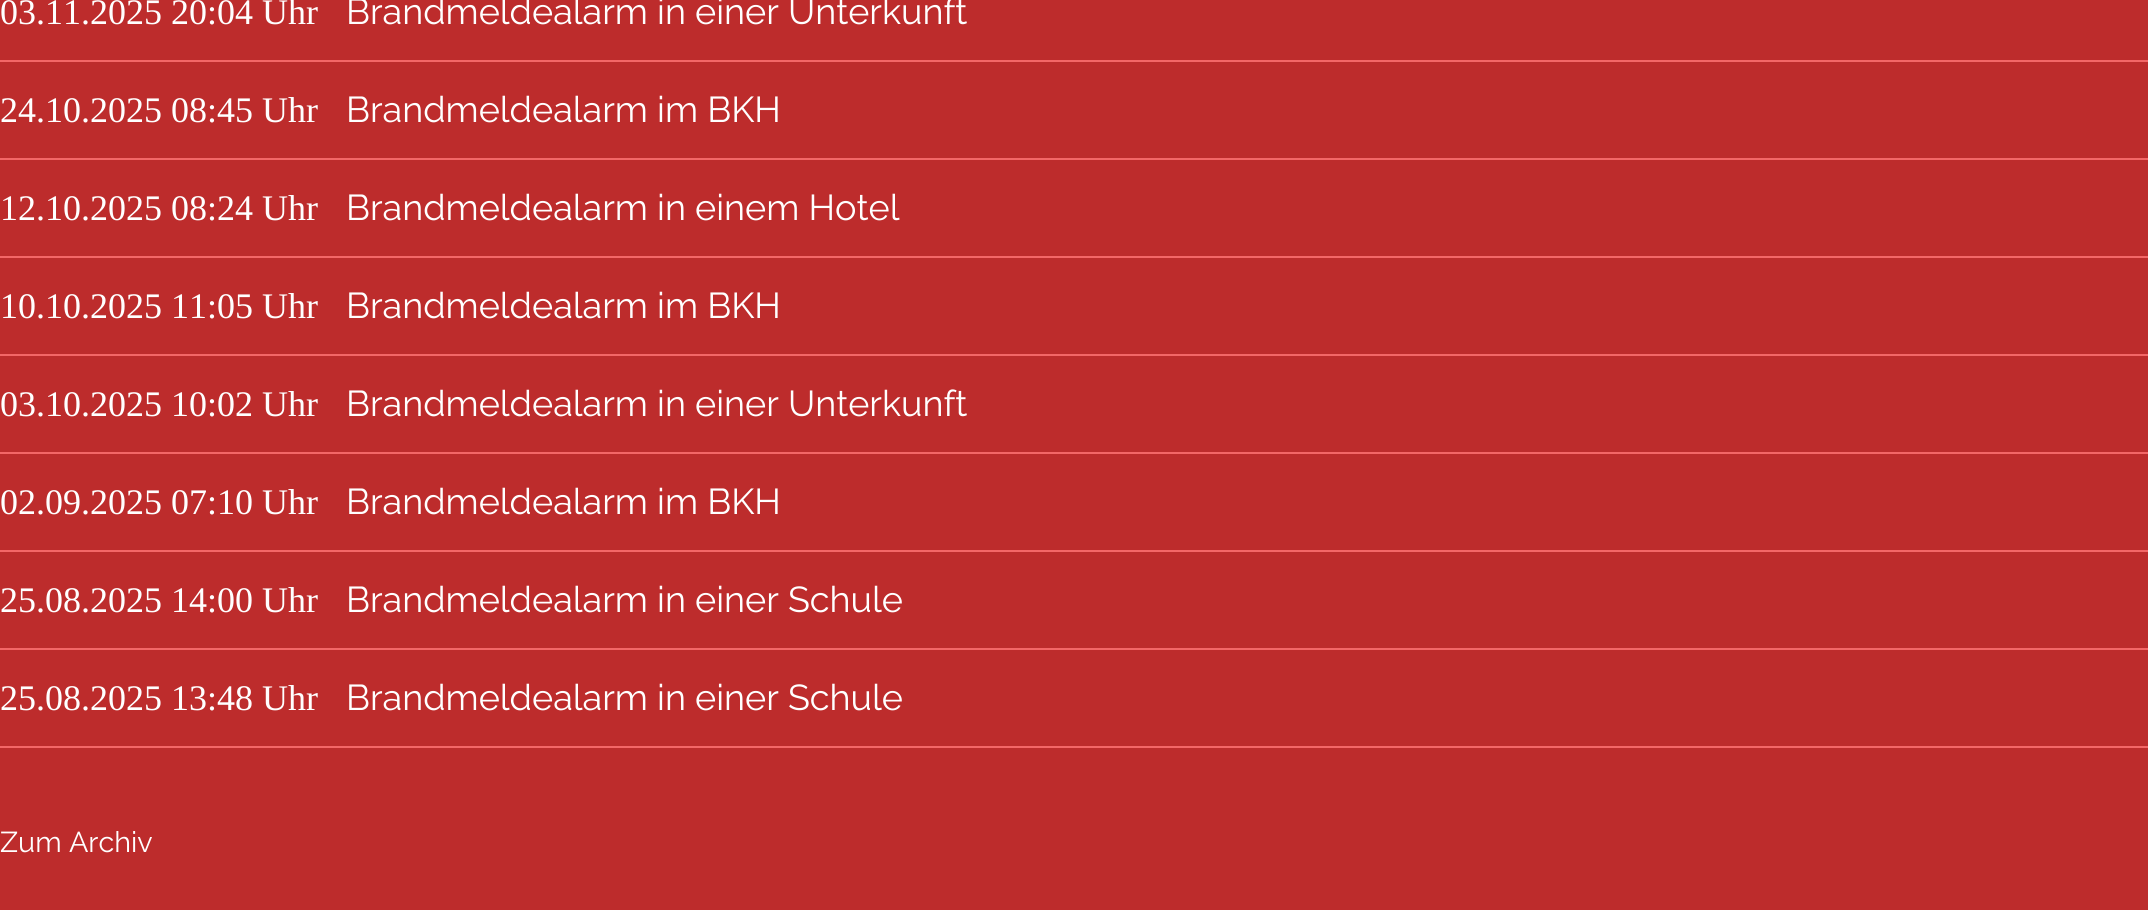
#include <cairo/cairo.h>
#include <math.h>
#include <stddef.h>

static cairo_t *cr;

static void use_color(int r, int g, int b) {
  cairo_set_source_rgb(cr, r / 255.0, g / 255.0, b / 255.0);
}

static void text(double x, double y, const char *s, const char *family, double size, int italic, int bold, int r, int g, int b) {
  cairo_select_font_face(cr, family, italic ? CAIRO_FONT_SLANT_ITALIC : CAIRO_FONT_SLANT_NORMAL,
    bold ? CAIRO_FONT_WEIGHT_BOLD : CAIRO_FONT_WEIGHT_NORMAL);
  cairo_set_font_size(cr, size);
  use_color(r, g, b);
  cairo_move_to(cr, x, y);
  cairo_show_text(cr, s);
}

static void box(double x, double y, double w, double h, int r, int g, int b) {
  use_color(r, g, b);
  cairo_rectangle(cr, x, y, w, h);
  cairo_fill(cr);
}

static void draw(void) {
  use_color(189, 44, 44);
  cairo_paint(cr);
  box(0, 60, 2148, 2, 243, 103, 103);
  box(0, 158, 2148, 2, 243, 103, 103);
  box(0, 256, 2148, 2, 243, 103, 103);
  box(0, 354, 2148, 2, 243, 103, 103);
  box(0, 452, 2148, 2, 243, 103, 103);
  box(0, 550, 2148, 2, 243, 103, 103);
  box(0, 648, 2148, 2, 243, 103, 103);
  box(0, 746, 2148, 2, 243, 103, 103);
  text(0, 24, "03.11.2025 20:04 Uhr", "Liberation Serif", 36, 0, 0, 255, 255, 255);
  text(346, 24, "Brandmeldealarm in einer Unterkunft", "Raleway", 36, 0, 0, 255, 255, 255);
  text(0, 122, "24.10.2025 08:45 Uhr", "Liberation Serif", 36, 0, 0, 255, 255, 255);
  text(346, 122, "Brandmeldealarm im BKH", "Raleway", 36, 0, 0, 255, 255, 255);
  text(0, 220, "12.10.2025 08:24 Uhr", "Liberation Serif", 36, 0, 0, 255, 255, 255);
  text(346, 220, "Brandmeldealarm in einem Hotel", "Raleway", 36, 0, 0, 255, 255, 255);
  text(0, 318, "10.10.2025 11:05 Uhr", "Liberation Serif", 36, 0, 0, 255, 255, 255);
  text(346, 318, "Brandmeldealarm im BKH", "Raleway", 36, 0, 0, 255, 255, 255);
  text(0, 416, "03.10.2025 10:02 Uhr", "Liberation Serif", 36, 0, 0, 255, 255, 255);
  text(346, 416, "Brandmeldealarm in einer Unterkunft", "Raleway", 36, 0, 0, 255, 255, 255);
  text(0, 514, "02.09.2025 07:10 Uhr", "Liberation Serif", 36, 0, 0, 255, 255, 255);
  text(346, 514, "Brandmeldealarm im BKH", "Raleway", 36, 0, 0, 255, 255, 255);
  text(0, 612, "25.08.2025 14:00 Uhr", "Liberation Serif", 36, 0, 0, 255, 255, 255);
  text(346, 612, "Brandmeldealarm in einer Schule", "Raleway", 36, 0, 0, 255, 255, 255);
  text(0, 710, "25.08.2025 13:48 Uhr", "Liberation Serif", 36, 0, 0, 255, 255, 255);
  text(346, 710, "Brandmeldealarm in einer Schule", "Raleway", 36, 0, 0, 255, 255, 255);
  text(0, 852, "Zum Archiv", "Raleway", 28.75, 0, 0, 255, 255, 255);
}

int main(void) {
  cairo_surface_t *surface = cairo_image_surface_create(CAIRO_FORMAT_RGB24, 2148, 910);
  cr = cairo_create(surface);
  cairo_font_options_t *options = cairo_font_options_create();
  cairo_font_options_set_hint_metrics(options, CAIRO_HINT_METRICS_OFF);
  cairo_font_options_set_hint_style(options, CAIRO_HINT_STYLE_NONE);
  cairo_set_font_options(cr, options);
  cairo_set_miter_limit(cr, 4);
  draw();
  cairo_surface_write_to_png(surface, "out.png");
  cairo_font_options_destroy(options);
  cairo_destroy(cr);
  cairo_surface_destroy(surface);
  return 0;
}
